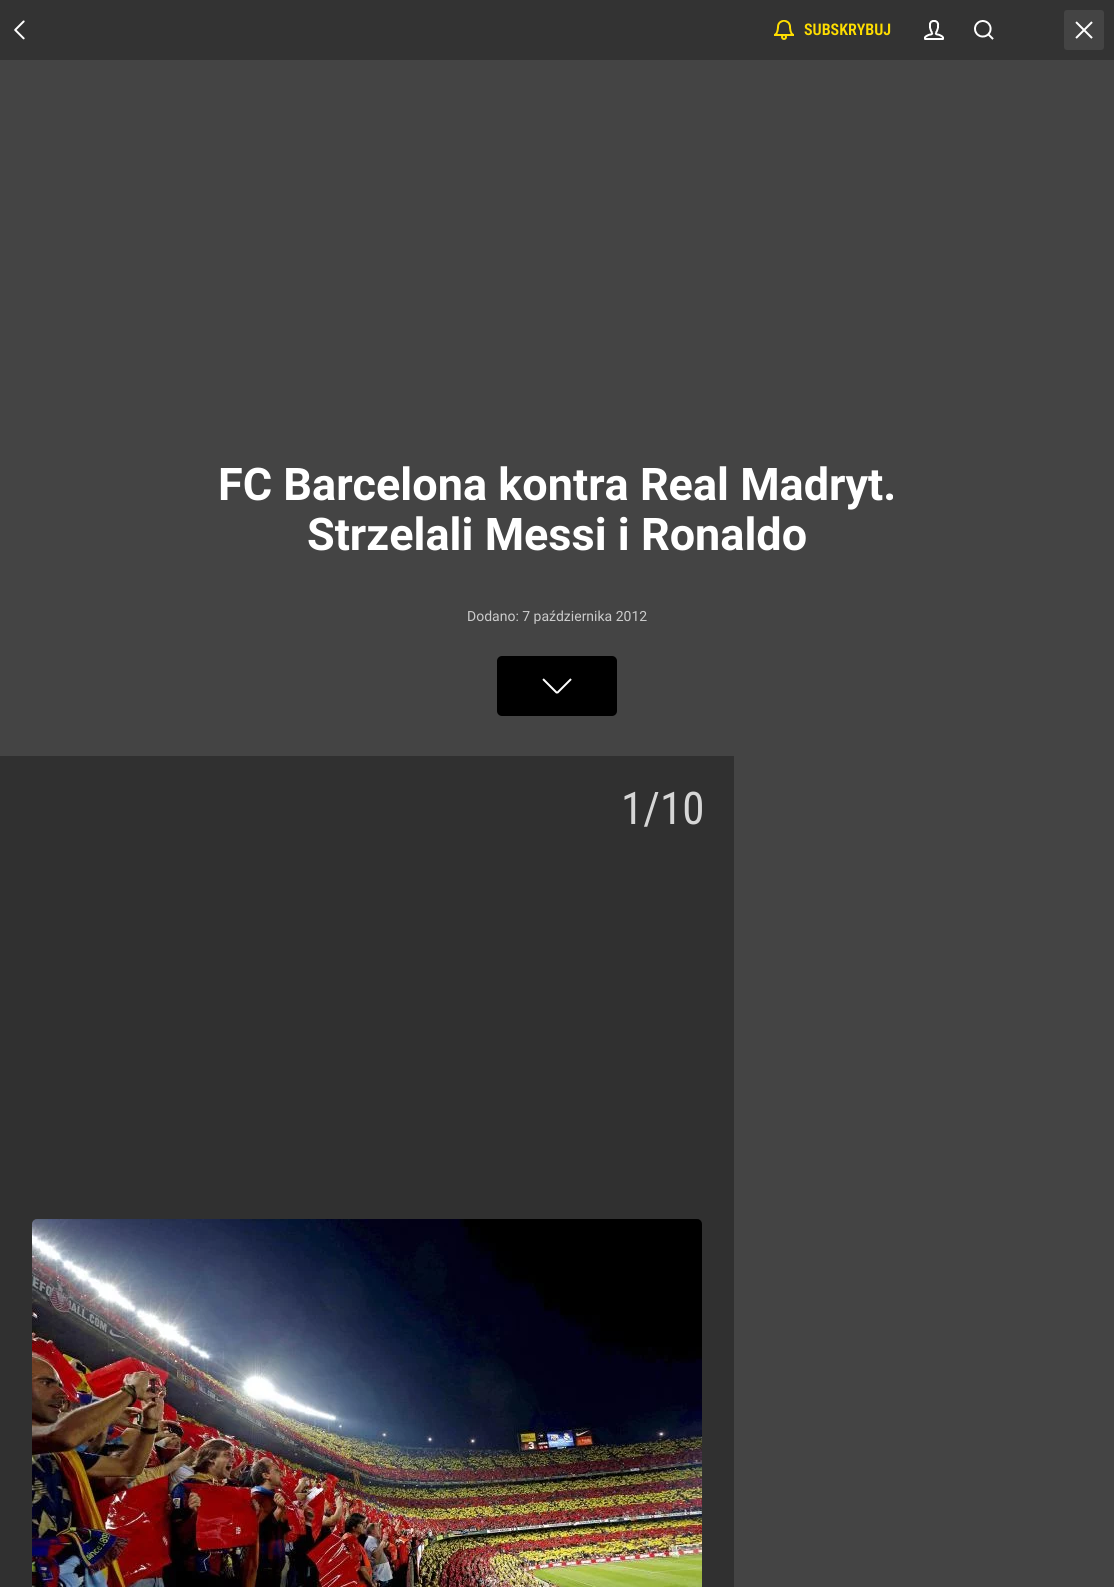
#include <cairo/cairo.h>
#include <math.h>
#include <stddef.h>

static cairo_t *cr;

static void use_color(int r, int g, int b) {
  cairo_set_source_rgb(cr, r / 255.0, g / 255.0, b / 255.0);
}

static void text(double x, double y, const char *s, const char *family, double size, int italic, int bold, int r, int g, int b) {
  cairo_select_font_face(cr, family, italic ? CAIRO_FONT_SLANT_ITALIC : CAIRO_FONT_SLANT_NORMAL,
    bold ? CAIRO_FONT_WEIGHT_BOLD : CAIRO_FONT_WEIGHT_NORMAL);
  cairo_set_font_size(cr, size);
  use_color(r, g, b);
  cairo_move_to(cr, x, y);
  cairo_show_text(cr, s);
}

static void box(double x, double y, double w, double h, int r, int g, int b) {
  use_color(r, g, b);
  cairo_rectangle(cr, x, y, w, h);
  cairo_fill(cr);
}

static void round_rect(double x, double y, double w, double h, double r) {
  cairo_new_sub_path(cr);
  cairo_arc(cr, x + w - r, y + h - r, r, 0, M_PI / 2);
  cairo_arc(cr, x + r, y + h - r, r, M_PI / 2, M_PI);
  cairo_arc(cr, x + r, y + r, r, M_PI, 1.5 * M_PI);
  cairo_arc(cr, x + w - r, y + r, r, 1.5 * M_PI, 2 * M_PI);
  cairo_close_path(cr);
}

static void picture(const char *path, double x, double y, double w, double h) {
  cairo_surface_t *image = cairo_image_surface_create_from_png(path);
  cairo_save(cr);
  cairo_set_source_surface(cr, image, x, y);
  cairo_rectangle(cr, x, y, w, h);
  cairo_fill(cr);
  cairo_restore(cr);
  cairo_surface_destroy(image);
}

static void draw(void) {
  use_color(51, 51, 51);
  cairo_paint(cr);
  picture("img_01.png", 14, 20, 11, 20);
  picture("img_02.png", 774, 20, 20, 20);
  picture("img_03.png", 924, 20, 20, 20);
  picture("img_04.png", 974, 20, 20, 20);
  use_color(68, 68, 68);
  round_rect(1064, 10, 40, 40, 3);
  cairo_fill(cr);
  picture("img_05.png", 1075, 21, 18, 18);
  box(0, 60, 1114, 696, 68, 68, 68);
  use_color(0, 0, 0);
  round_rect(497, 656, 120, 60, 5);
  cairo_fill(cr);
  picture("img_06.png", 542, 678, 30, 16);
  box(0, 756, 734, 831, 48, 48, 48);
  picture("img_07.png", 32, 1219, 670, 368);
  box(734, 756, 380, 831, 68, 68, 68);
  text(804, 35, "SUBSKRYBUJ", "Roboto Condensed SemiBold", 16, 0, 0, 255, 222, 0);
  text(218, 500, "FC Barcelona kontra Real Madryt.", "Roboto", 45, 0, 1, 255, 255, 255);
  text(307, 550, "Strzelali Messi i Ronaldo", "Roboto", 45, 0, 1, 255, 255, 255);
  text(467, 621, "Dodano: 7 października 2012", "Roboto", 14, 0, 0, 204, 204, 204);
  text(621, 824, "1/10", "Roboto Condensed", 45, 0, 0, 214, 214, 214);
}

int main(void) {
  cairo_surface_t *surface = cairo_image_surface_create(CAIRO_FORMAT_RGB24, 1114, 1587);
  cr = cairo_create(surface);
  cairo_font_options_t *options = cairo_font_options_create();
  cairo_font_options_set_hint_metrics(options, CAIRO_HINT_METRICS_OFF);
  cairo_font_options_set_hint_style(options, CAIRO_HINT_STYLE_NONE);
  cairo_set_font_options(cr, options);
  cairo_set_miter_limit(cr, 4);
  draw();
  cairo_surface_write_to_png(surface, "out.png");
  cairo_font_options_destroy(options);
  cairo_destroy(cr);
  cairo_surface_destroy(surface);
  return 0;
}
